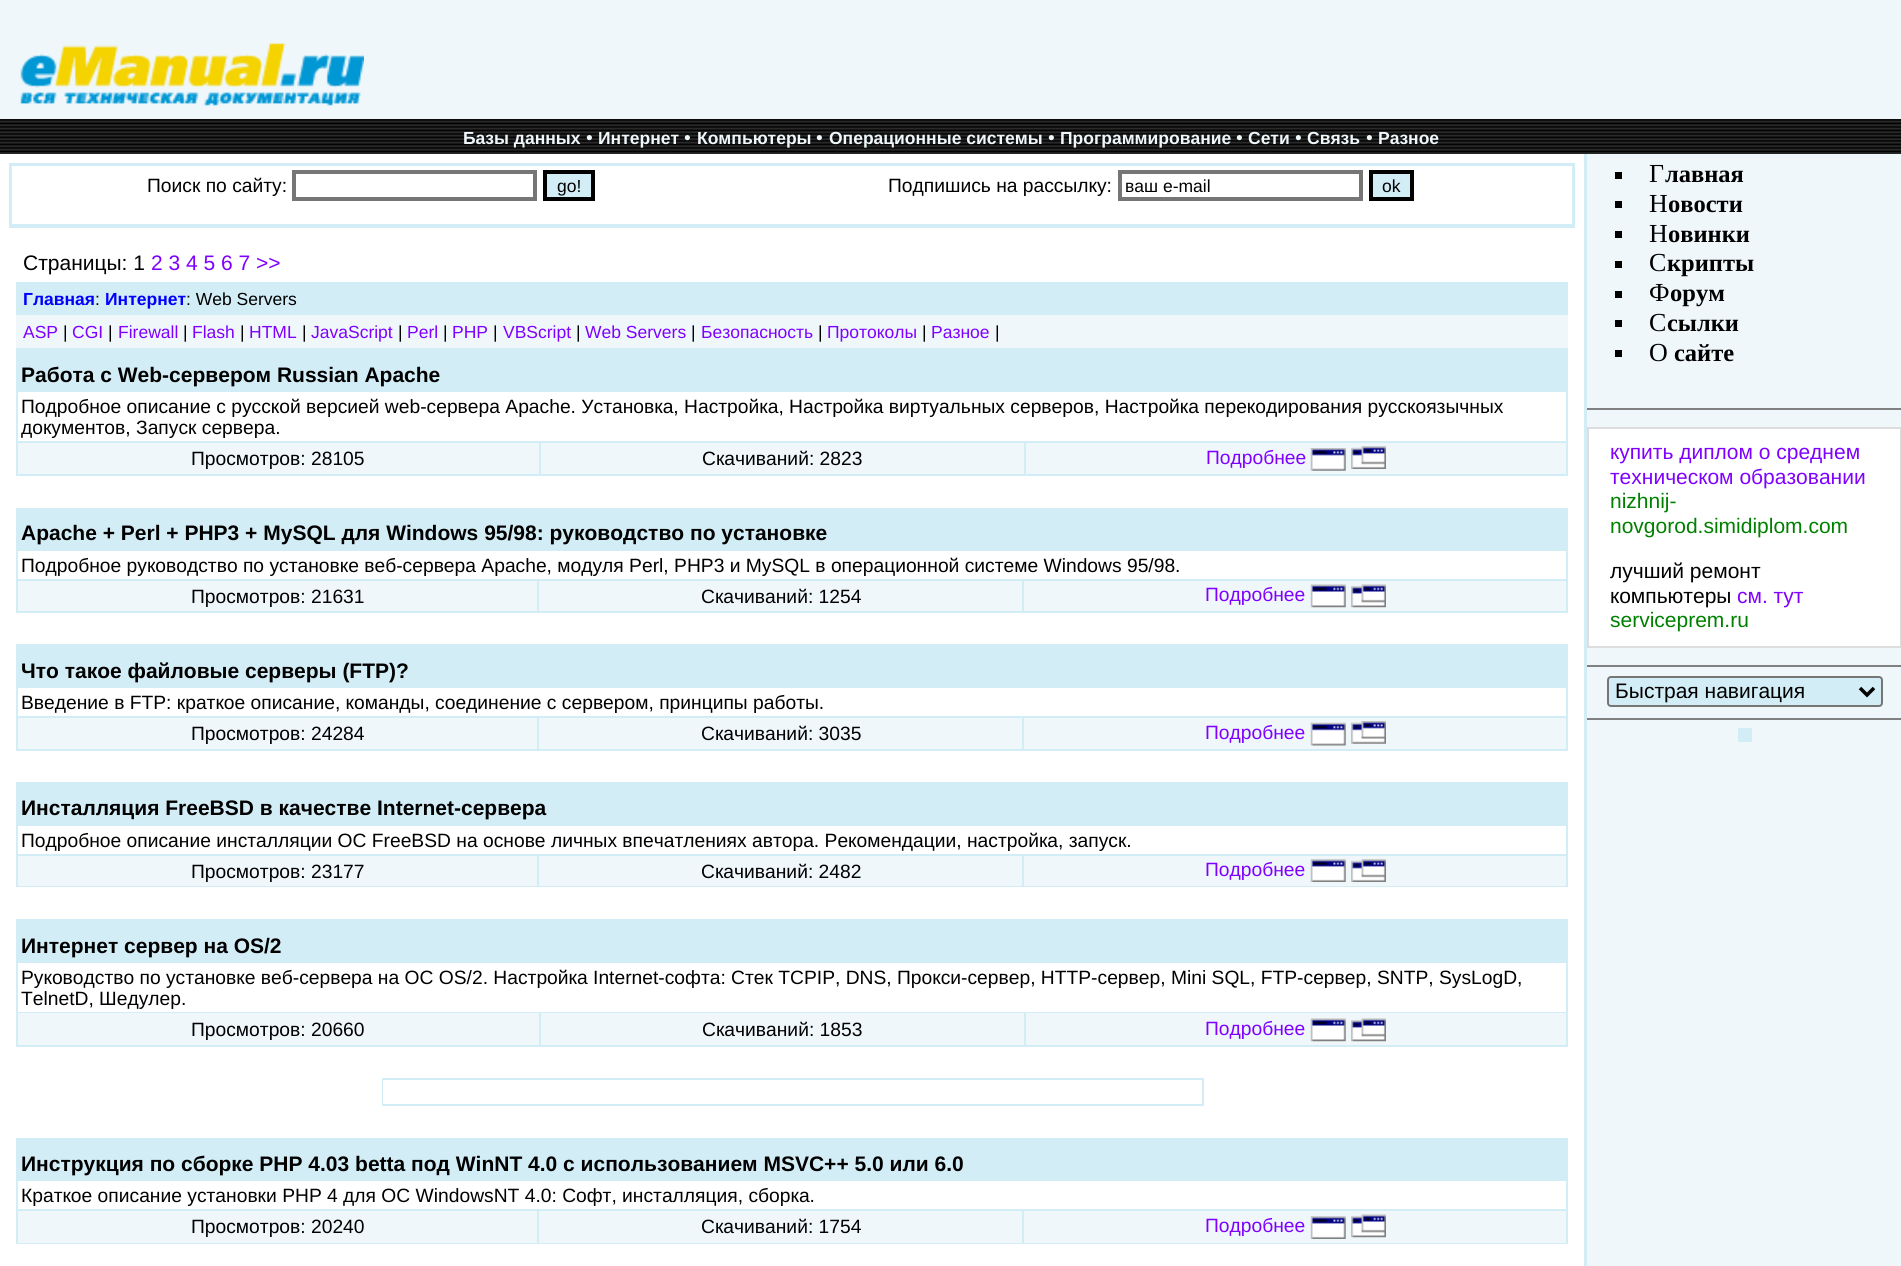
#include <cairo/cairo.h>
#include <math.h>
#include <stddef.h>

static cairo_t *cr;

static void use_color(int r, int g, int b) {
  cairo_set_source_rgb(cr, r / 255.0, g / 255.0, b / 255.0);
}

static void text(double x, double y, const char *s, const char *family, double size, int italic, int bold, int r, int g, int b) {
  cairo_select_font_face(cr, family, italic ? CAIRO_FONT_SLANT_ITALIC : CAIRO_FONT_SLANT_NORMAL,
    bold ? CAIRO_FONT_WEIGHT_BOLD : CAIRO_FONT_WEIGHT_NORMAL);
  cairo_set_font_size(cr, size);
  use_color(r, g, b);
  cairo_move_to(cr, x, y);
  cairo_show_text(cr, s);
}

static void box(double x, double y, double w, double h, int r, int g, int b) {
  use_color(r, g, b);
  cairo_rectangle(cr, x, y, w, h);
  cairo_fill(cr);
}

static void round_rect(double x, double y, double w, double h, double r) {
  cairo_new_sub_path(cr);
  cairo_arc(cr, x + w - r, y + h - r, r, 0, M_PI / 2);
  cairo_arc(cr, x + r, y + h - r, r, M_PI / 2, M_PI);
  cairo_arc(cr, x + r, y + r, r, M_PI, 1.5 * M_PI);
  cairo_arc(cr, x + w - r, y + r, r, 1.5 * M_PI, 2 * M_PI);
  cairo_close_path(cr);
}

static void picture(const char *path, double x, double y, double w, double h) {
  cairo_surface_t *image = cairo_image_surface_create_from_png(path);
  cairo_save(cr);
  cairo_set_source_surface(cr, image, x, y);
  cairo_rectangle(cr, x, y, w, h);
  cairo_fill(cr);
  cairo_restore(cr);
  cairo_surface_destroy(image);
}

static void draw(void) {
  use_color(255, 255, 255);
  cairo_paint(cr);
  box(0, 0, 1901, 119, 239, 247, 251);
  picture("img_01.png", 20, 43, 344, 63);
  picture("img_02.png", 0, 119, 1901, 35);
  box(9, 163, 1566, 65, 211, 237, 246);
  box(12, 166, 1560, 58, 255, 255, 255);
  cairo_rectangle(cr, 294, 172, 241, 27);
  use_color(118, 118, 118);
  cairo_set_line_width(cr, 4);
  cairo_stroke(cr);
  use_color(211, 237, 246);
  cairo_rectangle(cr, 545, 172, 48, 27);
  cairo_fill_preserve(cr);
  use_color(0, 0, 0);
  cairo_stroke(cr);
  cairo_rectangle(cr, 1120, 172, 241, 27);
  use_color(118, 118, 118);
  cairo_stroke(cr);
  use_color(211, 237, 246);
  cairo_rectangle(cr, 1371, 172, 41, 27);
  cairo_fill_preserve(cr);
  use_color(0, 0, 0);
  cairo_stroke(cr);
  box(16, 282, 1552, 33, 211, 237, 246);
  box(16, 315, 1552, 33, 239, 247, 251);
  box(16, 348, 1552, 128, 211, 237, 246);
  box(18, 392, 1548, 49, 255, 255, 255);
  box(18, 443, 521, 31, 239, 247, 251);
  box(541, 443, 483, 31, 239, 247, 251);
  box(1026, 443, 540, 31, 239, 247, 251);
  picture("img_03.png", 1310, 448, 36, 23);
  picture("img_04.png", 1351, 446, 35, 23);
  box(16, 508, 1552, 105, 211, 237, 246);
  box(18, 551, 1548, 28, 255, 255, 255);
  box(18, 581, 519, 30, 239, 247, 251);
  box(539, 581, 483, 30, 239, 247, 251);
  box(1024, 581, 542, 30, 239, 247, 251);
  picture("img_05.png", 1310, 584, 36, 24);
  picture("img_06.png", 1351, 584, 35, 24);
  box(16, 644, 1552, 107, 211, 237, 246);
  box(18, 688, 1548, 28, 255, 255, 255);
  box(18, 718, 519, 31, 239, 247, 251);
  box(539, 718, 483, 31, 239, 247, 251);
  box(1024, 718, 542, 31, 239, 247, 251);
  picture("img_07.png", 1310, 722, 36, 24);
  picture("img_08.png", 1351, 721, 35, 23);
  box(16, 782, 1552, 105, 211, 237, 246);
  box(18, 826, 1548, 28, 255, 255, 255);
  box(18, 856, 519, 30, 239, 247, 251);
  box(539, 856, 483, 30, 239, 247, 251);
  box(1024, 856, 542, 30, 239, 247, 251);
  picture("img_09.png", 1310, 859, 36, 23);
  picture("img_04.png", 1351, 859, 35, 23);
  box(16, 919, 1552, 128, 211, 237, 246);
  box(18, 963, 1548, 49, 255, 255, 255);
  box(18, 1013, 521, 32, 239, 247, 251);
  box(541, 1013, 483, 32, 239, 247, 251);
  box(1026, 1013, 540, 32, 239, 247, 251);
  picture("img_05.png", 1310, 1018, 36, 24);
  picture("img_06.png", 1351, 1018, 35, 24);
  box(382, 1078, 822, 28, 211, 237, 246);
  box(383, 1080, 819, 24, 255, 255, 255);
  box(16, 1138, 1552, 106, 211, 237, 246);
  box(18, 1181, 1548, 28, 255, 255, 255);
  box(18, 1211, 519, 32, 239, 247, 251);
  box(539, 1211, 483, 32, 239, 247, 251);
  box(1024, 1211, 542, 32, 239, 247, 251);
  picture("img_09.png", 1310, 1216, 36, 23);
  picture("img_06.png", 1351, 1214, 35, 24);
  box(1584, 154, 3, 1112, 211, 237, 246);
  box(1587, 154, 314, 1112, 239, 247, 251);
  box(1615, 172, 7, 7, 0, 0, 0);
  box(1615, 201, 7, 7, 0, 0, 0);
  box(1615, 231, 7, 7, 0, 0, 0);
  box(1615, 261, 7, 7, 0, 0, 0);
  box(1615, 291, 7, 7, 0, 0, 0);
  box(1615, 320, 7, 7, 0, 0, 0);
  box(1615, 350, 7, 7, 0, 0, 0);
  box(1587, 408, 314, 2, 128, 128, 128);
  use_color(255, 255, 255);
  cairo_rectangle(cr, 1588, 428, 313, 219);
  cairo_fill_preserve(cr);
  use_color(221, 221, 221);
  cairo_set_line_width(cr, 2);
  cairo_stroke(cr);
  box(1587, 665, 314, 2, 128, 128, 128);
  use_color(211, 237, 246);
  round_rect(1608, 677, 274, 29, 3);
  cairo_fill_preserve(cr);
  use_color(118, 118, 118);
  cairo_stroke(cr);
  cairo_new_path(cr);
  cairo_move_to(cr, 1860, 688);
  cairo_line_to(cr, 1867, 695);
  cairo_line_to(cr, 1874, 688);
  use_color(0, 0, 0);
  cairo_set_line_width(cr, 3.5);
  cairo_stroke(cr);
  box(1587, 718, 314, 2, 128, 128, 128);
  box(1738, 728, 14, 14, 211, 237, 246);
  text(463, 144, "Базы данных", "Liberation Sans", 17.5, 0, 1, 239, 247, 251);
  text(586, 144, "•", "Liberation Sans", 19.25, 0, 0, 239, 247, 251);
  text(598, 144, "Интернет", "Liberation Sans", 17.5, 0, 1, 239, 247, 251);
  text(684, 144, "•", "Liberation Sans", 19.25, 0, 0, 239, 247, 251);
  text(697, 144, "Компьютеры", "Liberation Sans", 17.5, 0, 1, 239, 247, 251);
  text(816, 144, "•", "Liberation Sans", 19.25, 0, 0, 239, 247, 251);
  text(829, 144, "Операционные системы", "Liberation Sans", 17.5, 0, 1, 239, 247, 251);
  text(1048, 144, "•", "Liberation Sans", 19.25, 0, 0, 239, 247, 251);
  text(1060, 144, "Программирование", "Liberation Sans", 17.5, 0, 1, 239, 247, 251);
  text(1236, 144, "•", "Liberation Sans", 19.25, 0, 0, 239, 247, 251);
  text(1248, 144, "Сети", "Liberation Sans", 17.5, 0, 1, 239, 247, 251);
  text(1295, 144, "•", "Liberation Sans", 19.25, 0, 0, 239, 247, 251);
  text(1307, 144, "Связь", "Liberation Sans", 17.5, 0, 1, 239, 247, 251);
  text(1366, 144, "•", "Liberation Sans", 19.25, 0, 0, 239, 247, 251);
  text(1378, 144, "Разное", "Liberation Sans", 17.5, 0, 1, 239, 247, 251);
  text(147, 192, "Поиск по сайту:", "Liberation Sans", 19.25, 0, 0, 0, 0, 0);
  text(557, 192, "go!", "Liberation Sans", 17.5, 0, 0, 0, 0, 0);
  text(888, 192, "Подпишись на рассылку:", "Liberation Sans", 19.25, 0, 0, 0, 0, 0);
  text(1125, 192, "ваш e-mail", "Liberation Sans", 17.5, 0, 0, 0, 0, 0);
  text(1382, 192, "ok", "Liberation Sans", 17.5, 0, 0, 0, 0, 0);
  text(23, 270, "Страницы: 1", "Liberation Sans", 21, 0, 0, 0, 0, 0);
  text(151, 270, "2 3 4 5 6 7 >>", "Liberation Sans", 21, 0, 0, 128, 0, 255);
  text(23, 305, "Главная", "Liberation Sans", 17.5, 0, 1, 0, 0, 255);
  text(95, 305, ":", "Liberation Sans", 17.5, 0, 0, 0, 0, 0);
  text(105, 305, "Интернет", "Liberation Sans", 17.5, 0, 1, 0, 0, 255);
  text(186, 305, ": Web Servers", "Liberation Sans", 17.5, 0, 0, 0, 0, 0);
  text(23, 338, "ASP", "Liberation Sans", 17.5, 0, 0, 128, 0, 255);
  text(63, 338, "|", "Liberation Sans", 17.5, 0, 0, 0, 0, 0);
  text(72, 338, "CGI", "Liberation Sans", 17.5, 0, 0, 128, 0, 255);
  text(108, 338, "|", "Liberation Sans", 17.5, 0, 0, 0, 0, 0);
  text(118, 338, "Firewall", "Liberation Sans", 17.5, 0, 0, 128, 0, 255);
  text(183, 338, "|", "Liberation Sans", 17.5, 0, 0, 0, 0, 0);
  text(192, 338, "Flash", "Liberation Sans", 17.5, 0, 0, 128, 0, 255);
  text(240, 338, "|", "Liberation Sans", 17.5, 0, 0, 0, 0, 0);
  text(249, 338, "HTML", "Liberation Sans", 17.5, 0, 0, 128, 0, 255);
  text(302, 338, "|", "Liberation Sans", 17.5, 0, 0, 0, 0, 0);
  text(311, 338, "JavaScript", "Liberation Sans", 17.5, 0, 0, 128, 0, 255);
  text(398, 338, "|", "Liberation Sans", 17.5, 0, 0, 0, 0, 0);
  text(407, 338, "Perl", "Liberation Sans", 17.5, 0, 0, 128, 0, 255);
  text(443, 338, "|", "Liberation Sans", 17.5, 0, 0, 0, 0, 0);
  text(452, 338, "PHP", "Liberation Sans", 17.5, 0, 0, 128, 0, 255);
  text(493, 338, "|", "Liberation Sans", 17.5, 0, 0, 0, 0, 0);
  text(503, 338, "VBScript", "Liberation Sans", 17.5, 0, 0, 128, 0, 255);
  text(576, 338, "|", "Liberation Sans", 17.5, 0, 0, 0, 0, 0);
  text(585, 338, "Web Servers", "Liberation Sans", 17.5, 0, 0, 128, 0, 255);
  text(691, 338, "|", "Liberation Sans", 17.5, 0, 0, 0, 0, 0);
  text(701, 338, "Безопасность", "Liberation Sans", 17.5, 0, 0, 128, 0, 255);
  text(818, 338, "|", "Liberation Sans", 17.5, 0, 0, 0, 0, 0);
  text(827, 338, "Протоколы", "Liberation Sans", 17.5, 0, 0, 128, 0, 255);
  text(922, 338, "|", "Liberation Sans", 17.5, 0, 0, 0, 0, 0);
  text(931, 338, "Разное", "Liberation Sans", 17.5, 0, 0, 128, 0, 255);
  text(995, 338, "|", "Liberation Sans", 17.5, 0, 0, 0, 0, 0);
  text(21, 382, "Работа с Web-сервером Russian Apache", "Liberation Sans", 21, 0, 1, 0, 0, 0);
  text(21, 413, "Подробное описание с русской версией web-сервера Apache. Установка, Настройка, Настройка виртуальных серверов, Настройка перекодирования русскоязычных", "Liberation Sans", 19.25, 0, 0, 0, 0, 0);
  text(21, 434, "документов, Запуск сервера.", "Liberation Sans", 19.25, 0, 0, 0, 0, 0);
  text(191, 465, "Просмотров: 28105", "Liberation Sans", 19.25, 0, 0, 0, 0, 0);
  text(702, 465, "Скачиваний: 2823", "Liberation Sans", 19.25, 0, 0, 0, 0, 0);
  text(1206, 464, "Подробнее", "Liberation Sans", 19.25, 0, 0, 128, 0, 255);
  text(21, 540, "Apache + Perl + PHP3 + MySQL для Windows 95/98: руководство по установке", "Liberation Sans", 21, 0, 1, 0, 0, 0);
  text(21, 572, "Подробное руководство по установке веб-сервера Apache, модуля Perl, PHP3 и MySQL в операционной системе Windows 95/98.", "Liberation Sans", 19.25, 0, 0, 0, 0, 0);
  text(191, 603, "Просмотров: 21631", "Liberation Sans", 19.25, 0, 0, 0, 0, 0);
  text(701, 603, "Скачиваний: 1254", "Liberation Sans", 19.25, 0, 0, 0, 0, 0);
  text(1205, 601, "Подробнее", "Liberation Sans", 19.25, 0, 0, 128, 0, 255);
  text(21, 678, "Что такое файловые серверы (FTP)?", "Liberation Sans", 21, 0, 1, 0, 0, 0);
  text(21, 709, "Введение в FTP: краткое описание, команды, соединение с сервером, принципы работы.", "Liberation Sans", 19.25, 0, 0, 0, 0, 0);
  text(191, 740, "Просмотров: 24284", "Liberation Sans", 19.25, 0, 0, 0, 0, 0);
  text(701, 740, "Скачиваний: 3035", "Liberation Sans", 19.25, 0, 0, 0, 0, 0);
  text(1205, 739, "Подробнее", "Liberation Sans", 19.25, 0, 0, 128, 0, 255);
  text(21, 815, "Инсталляция FreeBSD в качестве Internet-сервера", "Liberation Sans", 21, 0, 1, 0, 0, 0);
  text(21, 847, "Подробное описание инсталляции ОС FreeBSD на основе личных впечатлениях автора. Рекомендации, настройка, запуск.", "Liberation Sans", 19.25, 0, 0, 0, 0, 0);
  text(191, 878, "Просмотров: 23177", "Liberation Sans", 19.25, 0, 0, 0, 0, 0);
  text(701, 878, "Скачиваний: 2482", "Liberation Sans", 19.25, 0, 0, 0, 0, 0);
  text(1205, 876, "Подробнее", "Liberation Sans", 19.25, 0, 0, 128, 0, 255);
  text(21, 953, "Интернет сервер на OS/2", "Liberation Sans", 21, 0, 1, 0, 0, 0);
  text(21, 984, "Руководство по установке веб-сервера на ОС OS/2. Настройка Internet-софта: Стек TCPIP, DNS, Прокси-сервер, HTTP-сервер, Mini SQL, FTP-сервер, SNTP, SysLogD,", "Liberation Sans", 19.25, 0, 0, 0, 0, 0);
  text(21, 1005, "TelnetD, Шедулер.", "Liberation Sans", 19.25, 0, 0, 0, 0, 0);
  text(191, 1036, "Просмотров: 20660", "Liberation Sans", 19.25, 0, 0, 0, 0, 0);
  text(702, 1036, "Скачиваний: 1853", "Liberation Sans", 19.25, 0, 0, 0, 0, 0);
  text(1205, 1035, "Подробнее", "Liberation Sans", 19.25, 0, 0, 128, 0, 255);
  text(21, 1171, "Инструкция по сборке PHP 4.03 betta под WinNT 4.0 с использованием MSVC++ 5.0 или 6.0", "Liberation Sans", 21, 0, 1, 0, 0, 0);
  text(21, 1202, "Краткое описание установки PHP 4 для ОС WindowsNT 4.0: Софт, инсталляция, сборка.", "Liberation Sans", 19.25, 0, 0, 0, 0, 0);
  text(191, 1233, "Просмотров: 20240", "Liberation Sans", 19.25, 0, 0, 0, 0, 0);
  text(701, 1233, "Скачиваний: 1754", "Liberation Sans", 19.25, 0, 0, 0, 0, 0);
  text(1205, 1232, "Подробнее", "Liberation Sans", 19.25, 0, 0, 128, 0, 255);
  text(1649, 182, "Г", "Liberation Serif", 26, 0, 0, 0, 0, 0);
  text(1665, 182, "лавная", "Liberation Serif", 24.5, 0, 1, 0, 0, 0);
  text(1649, 212, "Н", "Liberation Serif", 26, 0, 0, 0, 0, 0);
  text(1668, 212, "овости", "Liberation Serif", 24.5, 0, 1, 0, 0, 0);
  text(1649, 242, "Н", "Liberation Serif", 26, 0, 0, 0, 0, 0);
  text(1668, 242, "овинки", "Liberation Serif", 24.5, 0, 1, 0, 0, 0);
  text(1649, 271, "С", "Liberation Serif", 26, 0, 0, 0, 0, 0);
  text(1667, 271, "крипты", "Liberation Serif", 24.5, 0, 1, 0, 0, 0);
  text(1649, 301, "Ф", "Liberation Serif", 26, 0, 0, 0, 0, 0);
  text(1670, 301, "орум", "Liberation Serif", 24.5, 0, 1, 0, 0, 0);
  text(1649, 331, "С", "Liberation Serif", 26, 0, 0, 0, 0, 0);
  text(1667, 331, "сылки", "Liberation Serif", 24.5, 0, 1, 0, 0, 0);
  text(1649, 361, "О", "Liberation Serif", 26, 0, 0, 0, 0, 0);
  text(1674, 361, "сайте", "Liberation Serif", 24.5, 0, 1, 0, 0, 0);
  text(1610, 459, "купить диплом о среднем", "Liberation Sans", 21, 0, 0, 128, 0, 255);
  text(1610, 484, "техническом образовании", "Liberation Sans", 21, 0, 0, 128, 0, 255);
  text(1610, 508, "nizhnij-", "Liberation Sans", 21, 0, 0, 0, 128, 0);
  text(1610, 533, "novgorod.simidiplom.com", "Liberation Sans", 21, 0, 0, 0, 128, 0);
  text(1610, 578, "лучший ремонт", "Liberation Sans", 21, 0, 0, 0, 0, 0);
  text(1610, 603, "компьютеры", "Liberation Sans", 21, 0, 0, 0, 0, 0);
  text(1737, 603, "см. тут", "Liberation Sans", 21, 0, 0, 128, 0, 255);
  text(1610, 627, "serviceprem.ru", "Liberation Sans", 21, 0, 0, 0, 128, 0);
  text(1615, 698, "Быстрая навигация", "Liberation Sans", 21, 0, 0, 0, 0, 0);
}

int main(void) {
  cairo_surface_t *surface = cairo_image_surface_create(CAIRO_FORMAT_RGB24, 1901, 1266);
  cr = cairo_create(surface);
  cairo_font_options_t *options = cairo_font_options_create();
  cairo_font_options_set_hint_metrics(options, CAIRO_HINT_METRICS_OFF);
  cairo_font_options_set_hint_style(options, CAIRO_HINT_STYLE_NONE);
  cairo_set_font_options(cr, options);
  cairo_set_miter_limit(cr, 4);
  draw();
  cairo_surface_write_to_png(surface, "out.png");
  cairo_font_options_destroy(options);
  cairo_destroy(cr);
  cairo_surface_destroy(surface);
  return 0;
}
